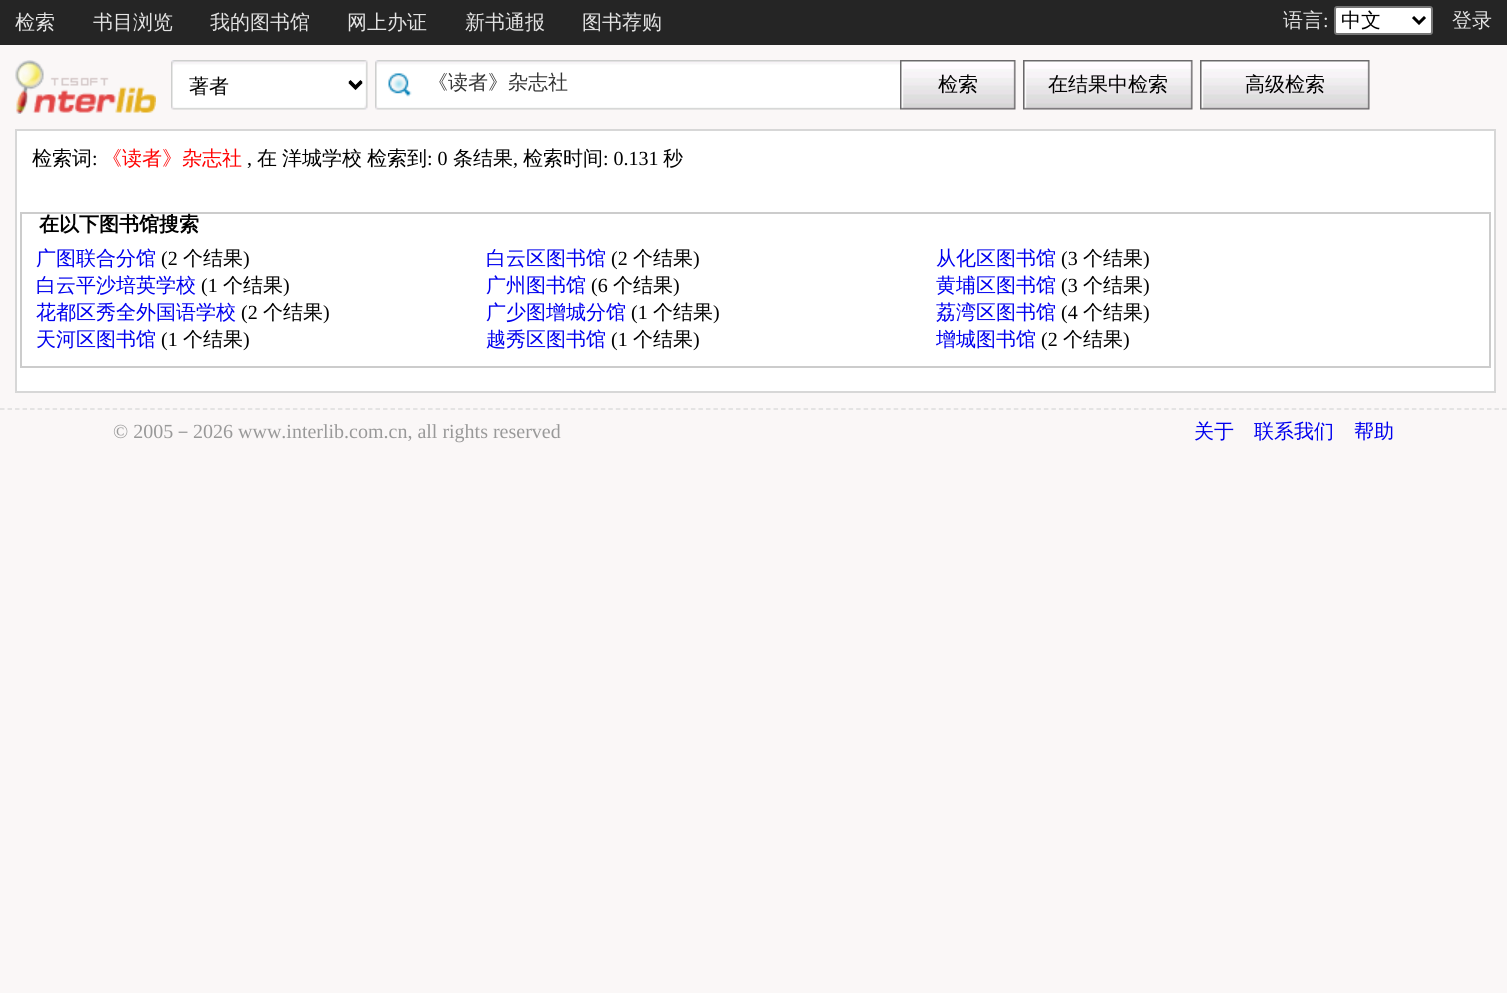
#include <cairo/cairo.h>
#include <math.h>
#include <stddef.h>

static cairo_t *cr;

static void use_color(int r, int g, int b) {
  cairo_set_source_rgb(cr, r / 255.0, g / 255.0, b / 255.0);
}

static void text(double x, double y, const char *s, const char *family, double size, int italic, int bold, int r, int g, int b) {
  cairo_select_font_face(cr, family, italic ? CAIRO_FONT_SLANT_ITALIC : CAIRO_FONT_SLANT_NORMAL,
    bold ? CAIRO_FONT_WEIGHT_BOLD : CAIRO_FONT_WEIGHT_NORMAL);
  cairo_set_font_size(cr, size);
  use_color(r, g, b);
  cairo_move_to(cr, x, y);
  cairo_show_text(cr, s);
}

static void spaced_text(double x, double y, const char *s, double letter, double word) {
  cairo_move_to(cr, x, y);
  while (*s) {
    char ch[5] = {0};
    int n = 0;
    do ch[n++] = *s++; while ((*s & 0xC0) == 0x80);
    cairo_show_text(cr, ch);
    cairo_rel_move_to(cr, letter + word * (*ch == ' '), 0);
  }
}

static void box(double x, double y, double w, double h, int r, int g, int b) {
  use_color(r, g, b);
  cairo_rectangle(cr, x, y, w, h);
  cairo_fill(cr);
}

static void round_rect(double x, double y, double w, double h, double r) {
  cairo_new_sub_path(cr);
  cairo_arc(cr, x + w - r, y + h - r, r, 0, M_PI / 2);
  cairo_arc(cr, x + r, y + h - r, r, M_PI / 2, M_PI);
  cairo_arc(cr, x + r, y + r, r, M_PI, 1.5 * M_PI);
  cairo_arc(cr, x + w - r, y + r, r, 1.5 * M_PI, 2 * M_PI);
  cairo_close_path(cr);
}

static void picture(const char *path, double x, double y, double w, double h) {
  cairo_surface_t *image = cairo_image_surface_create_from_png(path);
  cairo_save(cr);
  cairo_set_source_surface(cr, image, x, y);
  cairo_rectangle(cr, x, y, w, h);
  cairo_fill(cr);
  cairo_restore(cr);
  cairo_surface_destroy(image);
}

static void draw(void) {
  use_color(250, 247, 247);
  cairo_paint(cr);
  box(0, 0, 1507, 45, 37, 37, 37);
  use_color(255, 255, 255);
  round_rect(1335, 7, 97, 27, 2);
  cairo_fill_preserve(cr);
  use_color(118, 118, 118);
  cairo_stroke(cr);
  cairo_new_path(cr);
  cairo_move_to(cr, 1413, 17);
  cairo_line_to(cr, 1419, 23);
  cairo_line_to(cr, 1425, 17);
  use_color(0, 0, 0);
  cairo_set_line_width(cr, 3);
  cairo_stroke(cr);
  picture("img_01.png", 15, 60, 141, 54);
  picture("img_02.png", 171, 60, 197, 50);
  cairo_new_path(cr);
  cairo_move_to(cr, 349.5, 82);
  cairo_line_to(cr, 355.5, 88);
  cairo_line_to(cr, 361.5, 82);
  cairo_stroke(cr);
  picture("img_03.png", 375, 60, 525, 50);
  picture("img_04.png", 900, 60, 116, 50);
  picture("img_05.png", 1023, 60, 170, 50);
  picture("img_05.png", 1200, 60, 170, 50);
  use_color(255, 255, 255);
  cairo_rectangle(cr, 16, 130, 1479, 262);
  cairo_fill_preserve(cr);
  use_color(215, 215, 215);
  cairo_set_line_width(cr, 2);
  cairo_stroke(cr);
  cairo_rectangle(cr, 21, 213, 1469, 154);
  use_color(204, 204, 204);
  cairo_stroke(cr);
  cairo_new_path(cr);
  cairo_move_to(cr, 0, 409);
  cairo_line_to(cr, 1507.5, 409);
  use_color(221, 221, 221);
  cairo_set_line_width(cr, 1.5);
  cairo_set_dash(cr, (double[]){4.5, 3.01}, 2, 0);
  cairo_stroke(cr);
  text(15, 29, "检索", "WenQuanYi Zen Hei Medium", 20, 0, 0, 228, 228, 228);
  text(93, 29, "书目浏览", "WenQuanYi Zen Hei Medium", 20, 0, 0, 228, 228, 228);
  text(210, 29, "我的图书馆", "WenQuanYi Zen Hei Medium", 20, 0, 0, 228, 228, 228);
  text(347, 29, "网上办证", "WenQuanYi Zen Hei Medium", 20, 0, 0, 228, 228, 228);
  text(465, 29, "新书通报", "WenQuanYi Zen Hei Medium", 20, 0, 0, 228, 228, 228);
  text(582, 29, "图书荐购", "WenQuanYi Zen Hei Medium", 20, 0, 0, 228, 228, 228);
  text(1283, 27, "语言", "WenQuanYi Zen Hei Medium", 20, 0, 0, 228, 228, 228);
  text(1323, 27, ":", "Liberation Serif", 20, 0, 0, 228, 228, 228);
  text(1341, 27, "中文", "WenQuanYi Zen Hei Medium", 20, 0, 0, 0, 0, 0);
  text(1452, 27, "登录", "WenQuanYi Zen Hei Medium", 20, 0, 0, 228, 228, 228);
  text(189, 93, "著者", "WenQuanYi Zen Hei Medium", 20, 0, 0, 0, 0, 0);
  text(428, 89, "《读者》杂志社", "WenQuanYi Zen Hei Medium", 20, 0, 0, 51, 51, 51);
  text(938, 91, "检索", "WenQuanYi Zen Hei Medium", 20, 0, 0, 0, 0, 0);
  text(1048, 91, "在结果中检索", "WenQuanYi Zen Hei Medium", 20, 0, 0, 0, 0, 0);
  text(1245, 91, "高级检索", "WenQuanYi Zen Hei Medium", 20, 0, 0, 0, 0, 0);
  text(32, 165, "检索词", "WenQuanYi Zen Hei Medium", 20, 0, 0, 0, 0, 0);
  text(92, 165, ":", "Liberation Serif", 20, 0, 0, 0, 0, 0);
  text(102, 165, "《读者》杂志社", "WenQuanYi Zen Hei Medium", 20, 0, 0, 255, 0, 0);
  text(247, 165, ",", "Liberation Serif", 20, 0, 0, 0, 0, 0);
  cairo_select_font_face(cr, "WenQuanYi Zen Hei Medium", CAIRO_FONT_SLANT_NORMAL, CAIRO_FONT_WEIGHT_NORMAL);
  spaced_text(257, 165, "在 洋城学校", 0, -1);
  text(367, 165, "检索到", "WenQuanYi Zen Hei Medium", 20, 0, 0, 0, 0, 0);
  text(427, 165, ": 0", "Liberation Serif", 20, 0, 0, 0, 0, 0);
  text(453, 165, "条结果", "WenQuanYi Zen Hei Medium", 20, 0, 0, 0, 0, 0);
  text(513, 165, ",", "Liberation Serif", 20, 0, 0, 0, 0, 0);
  text(523, 165, "检索时间", "WenQuanYi Zen Hei Medium", 20, 0, 0, 0, 0, 0);
  text(603, 165, ": 0.131", "Liberation Serif", 20, 0, 0, 0, 0, 0);
  text(663, 165, "秒", "WenQuanYi Zen Hei Medium", 20, 0, 0, 0, 0, 0);
  text(39, 231, "在以下图书馆搜索", "WenQuanYi Zen Hei", 20, 0, 1, 0, 0, 0);
  text(36, 265, "广图联合分馆", "WenQuanYi Zen Hei Medium", 20, 0, 0, 0, 0, 238);
  text(161, 265, "(2", "Liberation Serif", 20, 0, 0, 0, 0, 0);
  text(183, 265, "个结果", "WenQuanYi Zen Hei Medium", 20, 0, 0, 0, 0, 0);
  text(243, 265, ")", "Liberation Serif", 20, 0, 0, 0, 0, 0);
  text(486, 265, "白云区图书馆", "WenQuanYi Zen Hei Medium", 20, 0, 0, 0, 0, 238);
  text(611, 265, "(2", "Liberation Serif", 20, 0, 0, 0, 0, 0);
  text(633, 265, "个结果", "WenQuanYi Zen Hei Medium", 20, 0, 0, 0, 0, 0);
  text(693, 265, ")", "Liberation Serif", 20, 0, 0, 0, 0, 0);
  text(936, 265, "从化区图书馆", "WenQuanYi Zen Hei Medium", 20, 0, 0, 0, 0, 238);
  text(1061, 265, "(3", "Liberation Serif", 20, 0, 0, 0, 0, 0);
  text(1083, 265, "个结果", "WenQuanYi Zen Hei Medium", 20, 0, 0, 0, 0, 0);
  text(1143, 265, ")", "Liberation Serif", 20, 0, 0, 0, 0, 0);
  text(36, 292, "白云平沙培英学校", "WenQuanYi Zen Hei Medium", 20, 0, 0, 0, 0, 238);
  text(201, 292, "(1", "Liberation Serif", 20, 0, 0, 0, 0, 0);
  text(223, 292, "个结果", "WenQuanYi Zen Hei Medium", 20, 0, 0, 0, 0, 0);
  text(283, 292, ")", "Liberation Serif", 20, 0, 0, 0, 0, 0);
  text(486, 292, "广州图书馆", "WenQuanYi Zen Hei Medium", 20, 0, 0, 0, 0, 238);
  text(591, 292, "(6", "Liberation Serif", 20, 0, 0, 0, 0, 0);
  text(613, 292, "个结果", "WenQuanYi Zen Hei Medium", 20, 0, 0, 0, 0, 0);
  text(673, 292, ")", "Liberation Serif", 20, 0, 0, 0, 0, 0);
  text(936, 292, "黄埔区图书馆", "WenQuanYi Zen Hei Medium", 20, 0, 0, 0, 0, 238);
  text(1061, 292, "(3", "Liberation Serif", 20, 0, 0, 0, 0, 0);
  text(1083, 292, "个结果", "WenQuanYi Zen Hei Medium", 20, 0, 0, 0, 0, 0);
  text(1143, 292, ")", "Liberation Serif", 20, 0, 0, 0, 0, 0);
  text(36, 319, "花都区秀全外国语学校", "WenQuanYi Zen Hei Medium", 20, 0, 0, 0, 0, 238);
  text(241, 319, "(2", "Liberation Serif", 20, 0, 0, 0, 0, 0);
  text(263, 319, "个结果", "WenQuanYi Zen Hei Medium", 20, 0, 0, 0, 0, 0);
  text(323, 319, ")", "Liberation Serif", 20, 0, 0, 0, 0, 0);
  text(486, 319, "广少图增城分馆", "WenQuanYi Zen Hei Medium", 20, 0, 0, 0, 0, 238);
  text(631, 319, "(1", "Liberation Serif", 20, 0, 0, 0, 0, 0);
  text(653, 319, "个结果", "WenQuanYi Zen Hei Medium", 20, 0, 0, 0, 0, 0);
  text(713, 319, ")", "Liberation Serif", 20, 0, 0, 0, 0, 0);
  text(936, 319, "荔湾区图书馆", "WenQuanYi Zen Hei Medium", 20, 0, 0, 0, 0, 238);
  text(1061, 319, "(4", "Liberation Serif", 20, 0, 0, 0, 0, 0);
  text(1083, 319, "个结果", "WenQuanYi Zen Hei Medium", 20, 0, 0, 0, 0, 0);
  text(1143, 319, ")", "Liberation Serif", 20, 0, 0, 0, 0, 0);
  text(36, 346, "天河区图书馆", "WenQuanYi Zen Hei Medium", 20, 0, 0, 0, 0, 238);
  text(161, 346, "(1", "Liberation Serif", 20, 0, 0, 0, 0, 0);
  text(183, 346, "个结果", "WenQuanYi Zen Hei Medium", 20, 0, 0, 0, 0, 0);
  text(243, 346, ")", "Liberation Serif", 20, 0, 0, 0, 0, 0);
  text(486, 346, "越秀区图书馆", "WenQuanYi Zen Hei Medium", 20, 0, 0, 0, 0, 238);
  text(611, 346, "(1", "Liberation Serif", 20, 0, 0, 0, 0, 0);
  text(633, 346, "个结果", "WenQuanYi Zen Hei Medium", 20, 0, 0, 0, 0, 0);
  text(693, 346, ")", "Liberation Serif", 20, 0, 0, 0, 0, 0);
  text(936, 346, "增城图书馆", "WenQuanYi Zen Hei Medium", 20, 0, 0, 0, 0, 238);
  text(1041, 346, "(2", "Liberation Serif", 20, 0, 0, 0, 0, 0);
  text(1063, 346, "个结果", "WenQuanYi Zen Hei Medium", 20, 0, 0, 0, 0, 0);
  text(1123, 346, ")", "Liberation Serif", 20, 0, 0, 0, 0, 0);
  text(113, 438, "© 2005", "Liberation Serif", 20, 0, 0, 153, 153, 153);
  text(173, 438, "－", "WenQuanYi Zen Hei Medium", 20, 0, 0, 153, 153, 153);
  text(193, 438, "2026 www.interlib.com.cn, all rights reserved", "Liberation Serif", 20, 0, 0, 153, 153, 153);
  text(1194, 438, "关于", "WenQuanYi Zen Hei Medium", 20, 0, 0, 0, 0, 238);
  text(1254, 438, "联系我们", "WenQuanYi Zen Hei Medium", 20, 0, 0, 0, 0, 238);
  text(1354, 438, "帮助", "WenQuanYi Zen Hei Medium", 20, 0, 0, 0, 0, 238);
}

int main(void) {
  cairo_surface_t *surface = cairo_image_surface_create(CAIRO_FORMAT_RGB24, 1507, 993);
  cr = cairo_create(surface);
  cairo_font_options_t *options = cairo_font_options_create();
  cairo_font_options_set_hint_metrics(options, CAIRO_HINT_METRICS_OFF);
  cairo_font_options_set_hint_style(options, CAIRO_HINT_STYLE_NONE);
  cairo_set_font_options(cr, options);
  cairo_set_miter_limit(cr, 4);
  draw();
  cairo_surface_write_to_png(surface, "out.png");
  cairo_font_options_destroy(options);
  cairo_destroy(cr);
  cairo_surface_destroy(surface);
  return 0;
}
